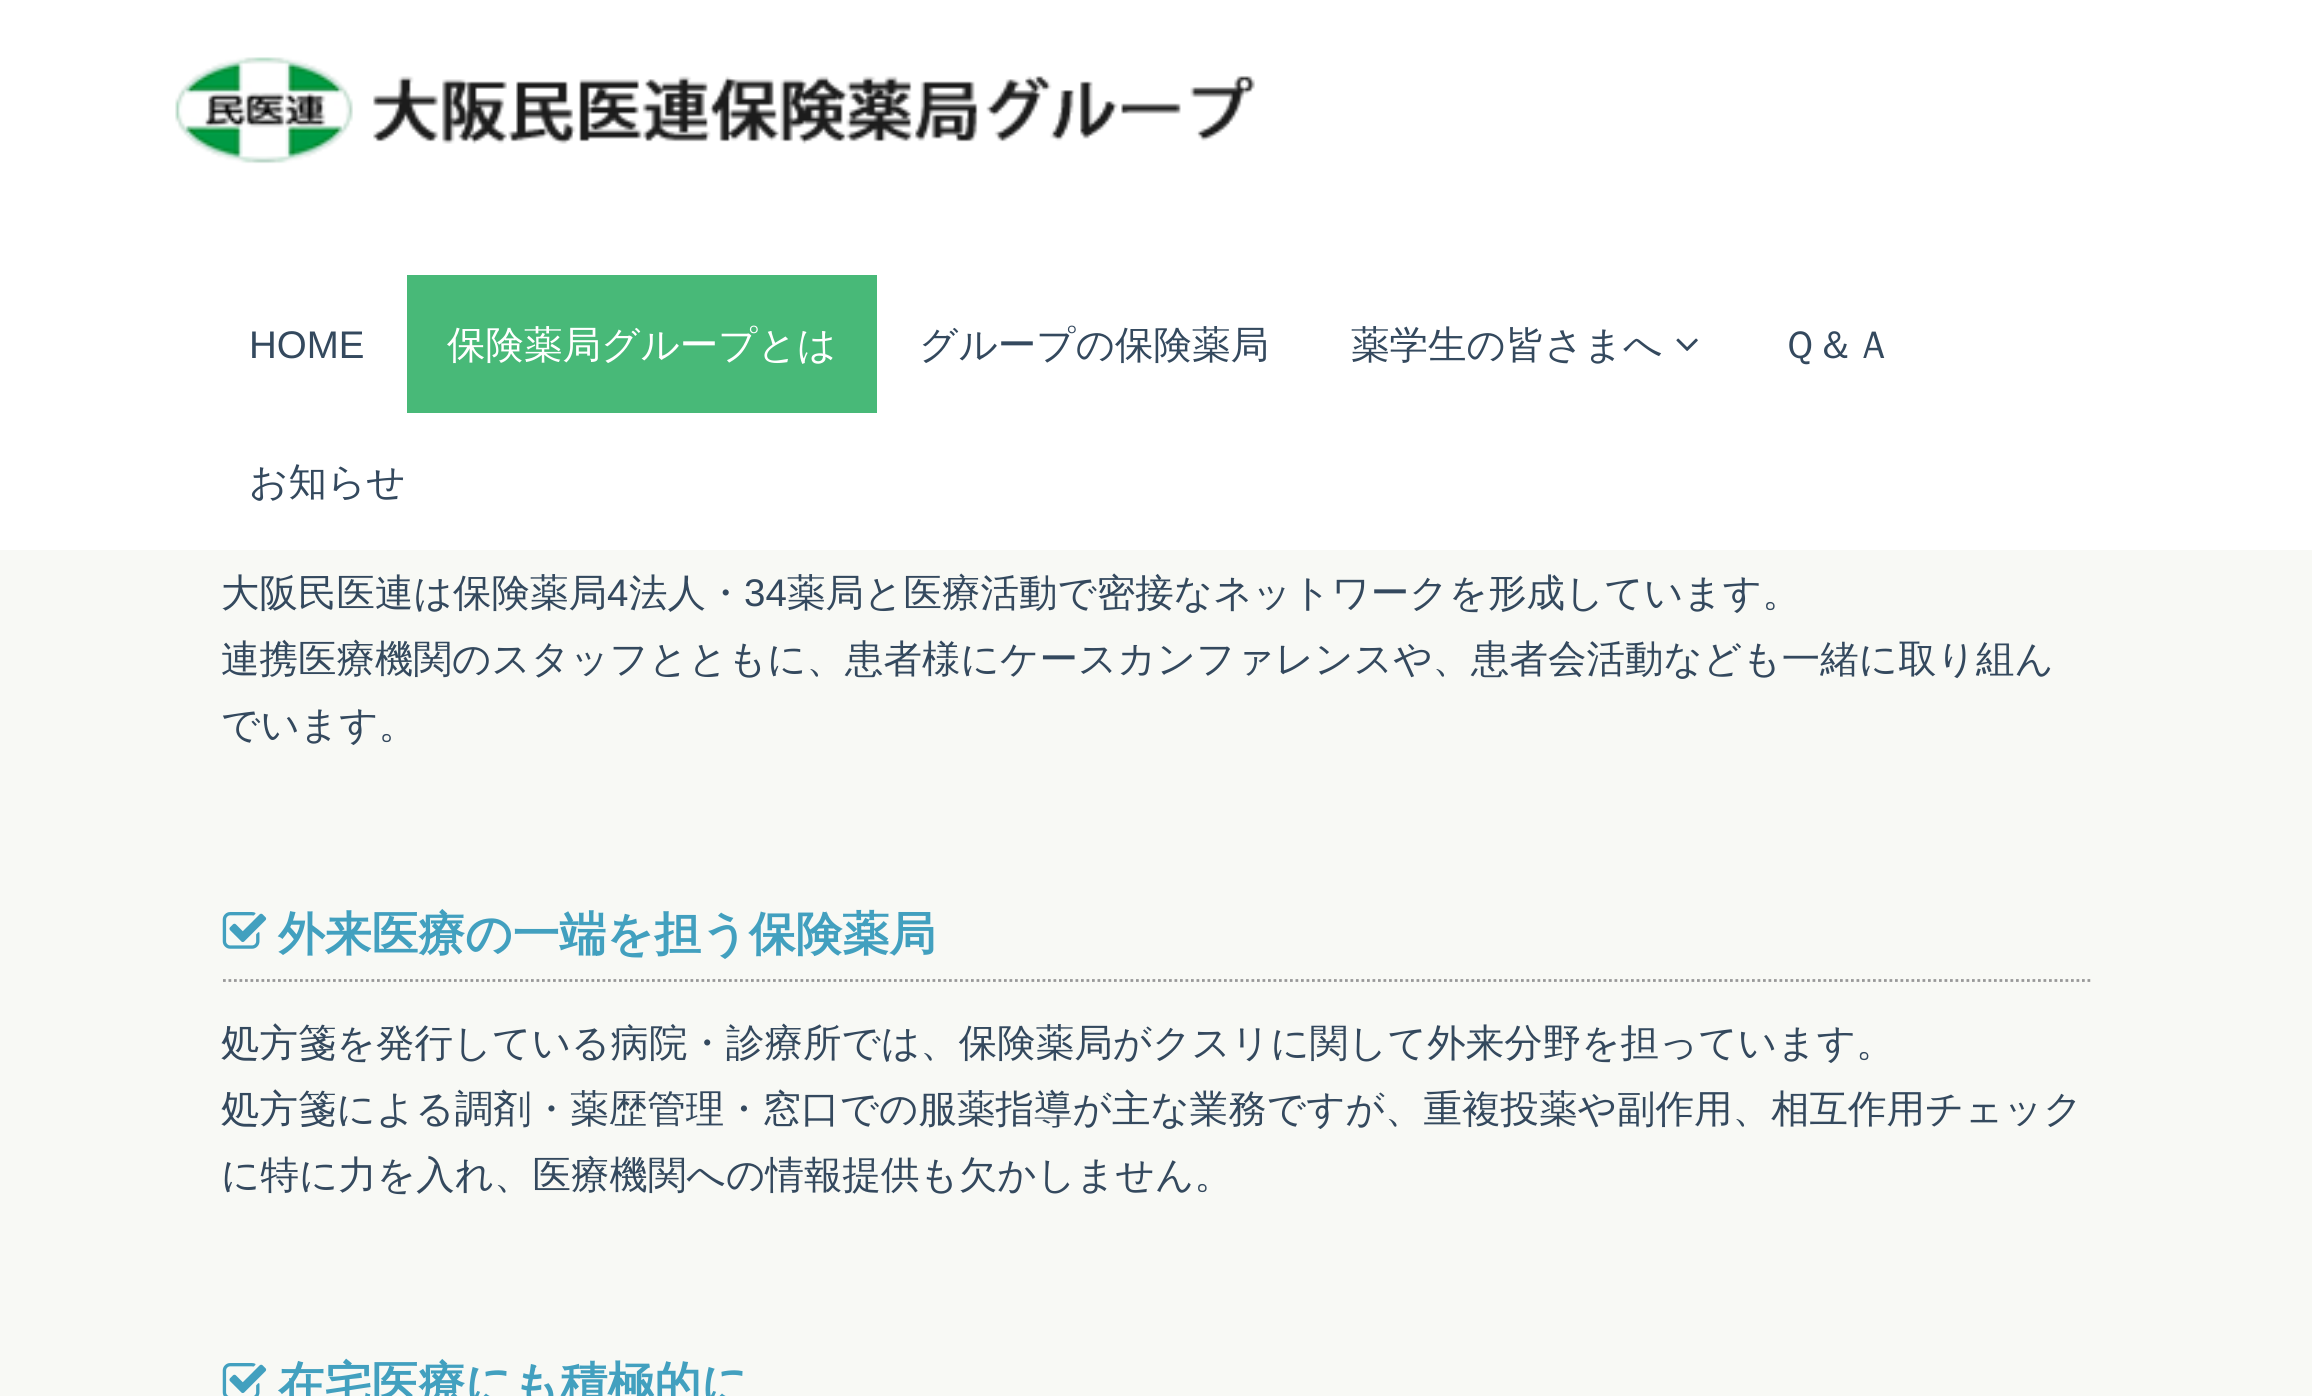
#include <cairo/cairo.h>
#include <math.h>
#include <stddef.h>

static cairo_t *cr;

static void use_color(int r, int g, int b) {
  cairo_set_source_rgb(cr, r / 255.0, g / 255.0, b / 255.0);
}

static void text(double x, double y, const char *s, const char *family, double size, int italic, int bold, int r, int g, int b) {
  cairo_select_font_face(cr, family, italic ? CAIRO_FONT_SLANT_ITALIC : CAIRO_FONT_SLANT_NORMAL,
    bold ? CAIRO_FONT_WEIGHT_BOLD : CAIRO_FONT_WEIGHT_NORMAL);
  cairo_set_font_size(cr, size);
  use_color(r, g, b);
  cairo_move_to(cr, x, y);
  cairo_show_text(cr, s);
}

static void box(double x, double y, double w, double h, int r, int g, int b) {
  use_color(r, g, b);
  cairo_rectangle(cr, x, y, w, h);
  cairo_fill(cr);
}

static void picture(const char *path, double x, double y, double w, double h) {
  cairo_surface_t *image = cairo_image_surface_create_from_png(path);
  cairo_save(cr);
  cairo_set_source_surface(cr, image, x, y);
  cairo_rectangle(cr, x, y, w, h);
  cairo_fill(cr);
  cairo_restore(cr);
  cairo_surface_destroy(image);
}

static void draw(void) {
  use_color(248, 249, 245);
  cairo_paint(cr);
  box(0, 0, 2312, 550, 255, 255, 255);
  picture("img_01.png", 175, 57, 1080, 107);
  box(407, 275, 470, 138, 72, 185, 120);
  picture("img_02.png", 1676, 338, 22, 13);
  cairo_new_path(cr);
  cairo_move_to(cr, 223, 980.5);
  cairo_line_to(cr, 2093, 980.5);
  use_color(153, 153, 153);
  cairo_set_line_width(cr, 2.8);
  cairo_set_dash(cr, (double[]){2.75, 2.75}, 2, 0);
  cairo_stroke(cr);
  picture("img_03.png", 222, 912, 45, 37);
  picture("img_04.png", 222, 1363, 45, 33);
  text(249, 358, "HOME", "Liberation Sans", 38.5, 0, 0, 52, 73, 94);
  text(447, 358, "保険薬局グループとは", "WenQuanYi Zen Hei Medium", 38.5, 0, 0, 255, 255, 255);
  text(919, 358, "グループの保険薬局", "WenQuanYi Zen Hei Medium", 38.5, 0, 0, 52, 73, 94);
  text(1351, 358, "薬学生の皆さまへ", "WenQuanYi Zen Hei Medium", 38.5, 0, 0, 52, 73, 94);
  text(1781, 358, "Ｑ＆Ａ", "WenQuanYi Zen Hei Medium", 38.5, 0, 0, 52, 73, 94);
  text(249, 495, "お知らせ", "WenQuanYi Zen Hei Medium", 38.5, 0, 0, 52, 73, 94);
  text(221, 606, "大阪民医連は保険薬局", "WenQuanYi Zen Hei Medium", 38.5, 0, 0, 52, 73, 94);
  text(607, 606, "4", "Liberation Sans", 38.5, 0, 0, 52, 73, 94);
  text(629, 606, "法人・", "WenQuanYi Zen Hei Medium", 38.5, 0, 0, 52, 73, 94);
  text(744, 606, "34", "Liberation Sans", 38.5, 0, 0, 52, 73, 94);
  text(787, 606, "薬局と医療活動で密接なネットワークを形成しています。", "WenQuanYi Zen Hei Medium", 38.5, 0, 0, 52, 73, 94);
  text(221, 672, "連携医療機関のスタッフとともに、患者様にケースカンファレンスや、患者会活動なども一緒に取り組ん", "WenQuanYi Zen Hei Medium", 38.5, 0, 0, 52, 73, 94);
  text(221, 738, "でいます。", "WenQuanYi Zen Hei Medium", 38.5, 0, 0, 52, 73, 94);
  text(278, 950, "外来医療の一端を担う保険薬局", "WenQuanYi Zen Hei", 46.75, 0, 1, 66, 160, 191);
  text(221, 1056, "処方箋を発行している病院・診療所では、保険薬局がクスリに関して外来分野を担っています。", "WenQuanYi Zen Hei Medium", 38.5, 0, 0, 52, 73, 94);
  text(221, 1122, "処方箋による調剤・薬歴管理・窓口での服薬指導が主な業務ですが、重複投薬や副作用、相互作用チェック", "WenQuanYi Zen Hei Medium", 38.5, 0, 0, 52, 73, 94);
  text(221, 1188, "に特に力を入れ、医療機関への情報提供も欠かしません。", "WenQuanYi Zen Hei Medium", 38.5, 0, 0, 52, 73, 94);
  text(278, 1400, "在宅医療にも積極的に", "WenQuanYi Zen Hei", 46.75, 0, 1, 66, 160, 191);
}

int main(void) {
  cairo_surface_t *surface = cairo_image_surface_create(CAIRO_FORMAT_RGB24, 2312, 1396);
  cr = cairo_create(surface);
  cairo_font_options_t *options = cairo_font_options_create();
  cairo_font_options_set_hint_metrics(options, CAIRO_HINT_METRICS_OFF);
  cairo_font_options_set_hint_style(options, CAIRO_HINT_STYLE_NONE);
  cairo_set_font_options(cr, options);
  cairo_set_miter_limit(cr, 4);
  draw();
  cairo_surface_write_to_png(surface, "out.png");
  cairo_font_options_destroy(options);
  cairo_destroy(cr);
  cairo_surface_destroy(surface);
  return 0;
}
